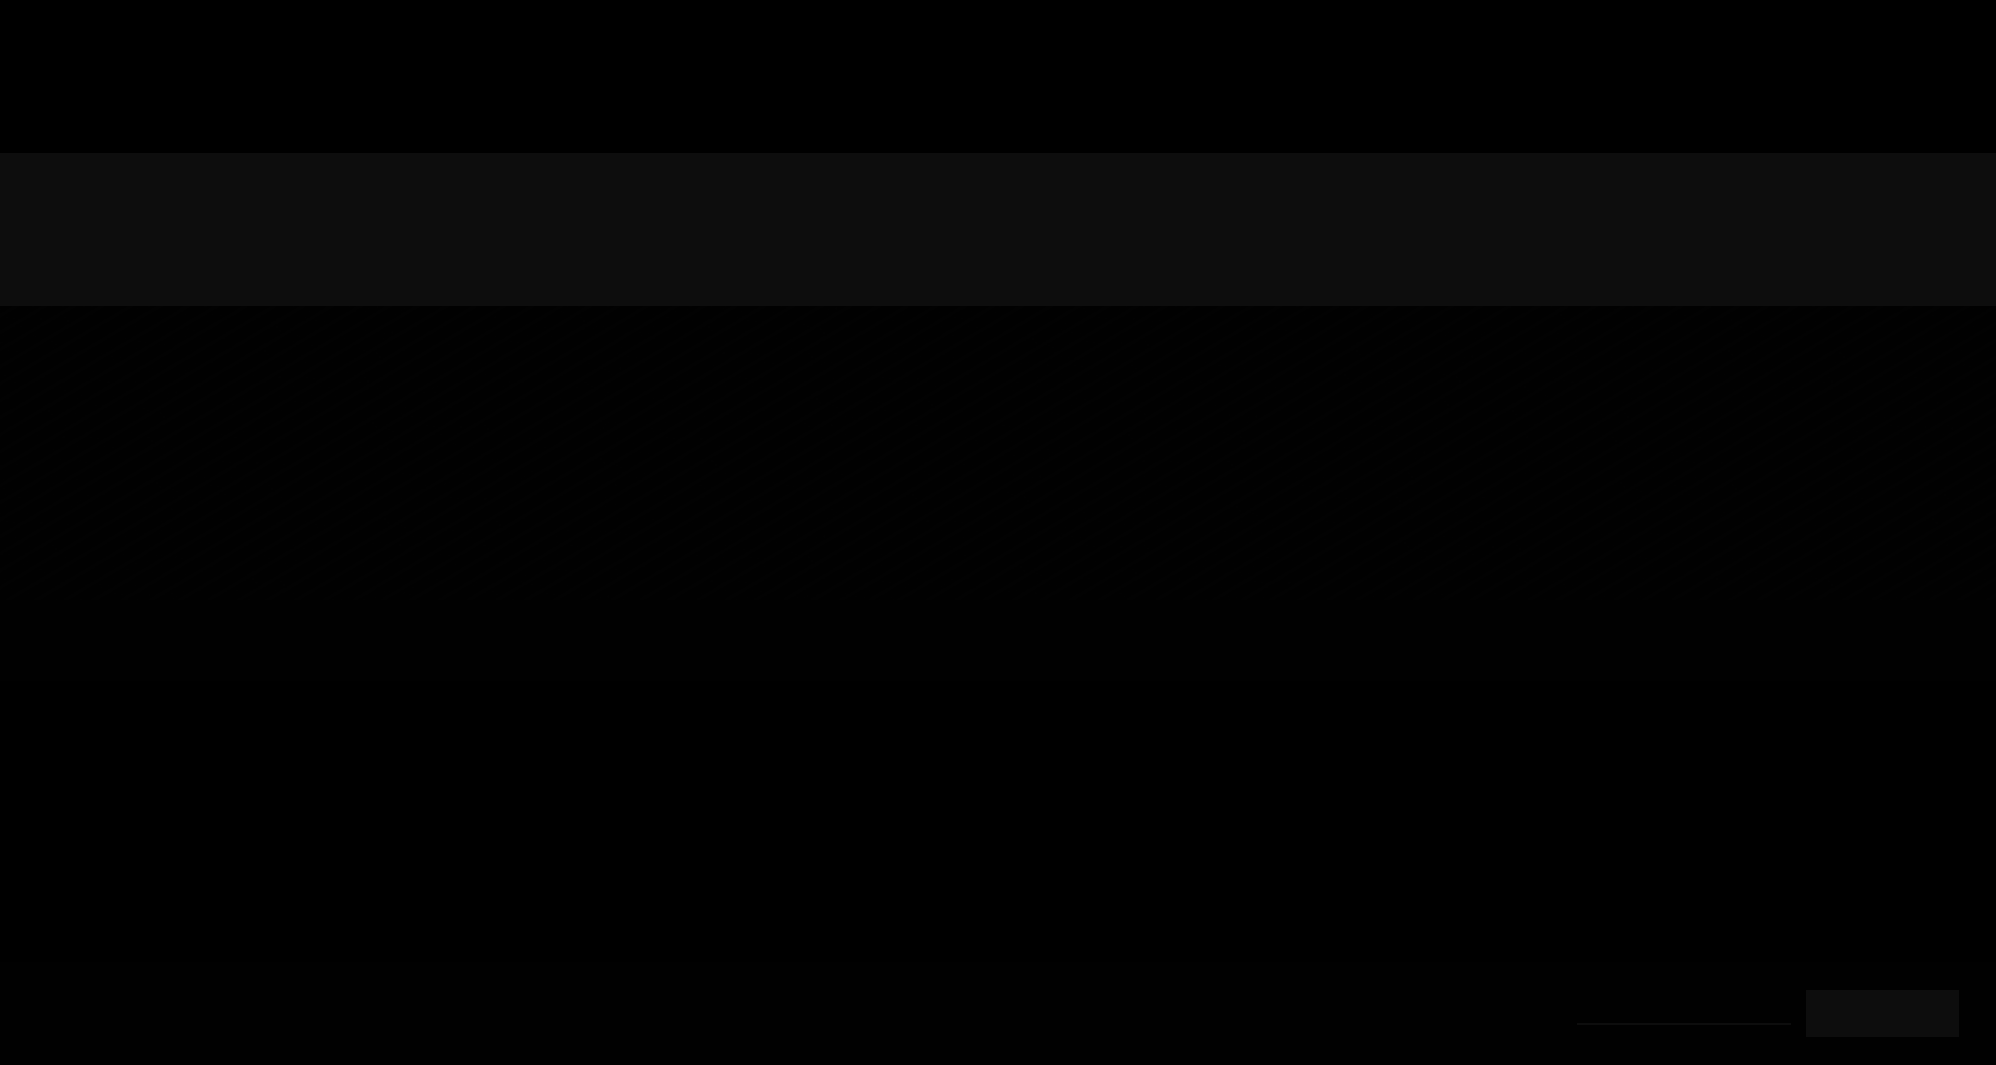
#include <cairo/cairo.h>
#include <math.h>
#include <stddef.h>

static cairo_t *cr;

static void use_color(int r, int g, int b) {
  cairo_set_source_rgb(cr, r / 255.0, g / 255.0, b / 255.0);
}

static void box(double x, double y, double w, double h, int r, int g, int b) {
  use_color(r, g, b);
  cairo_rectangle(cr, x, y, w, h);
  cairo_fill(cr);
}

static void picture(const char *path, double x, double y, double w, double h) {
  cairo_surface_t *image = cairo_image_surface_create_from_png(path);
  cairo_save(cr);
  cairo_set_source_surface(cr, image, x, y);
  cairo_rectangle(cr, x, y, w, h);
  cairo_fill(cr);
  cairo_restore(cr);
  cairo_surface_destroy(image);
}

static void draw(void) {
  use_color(13, 13, 13);
  cairo_paint(cr);
  box(0, 0, 1996, 153, 0, 0, 0);
  box(0, 681, 1996, 281, 0, 0, 0);
  box(0, 599, 1996, 82, 1, 1, 1);
  picture("img_01.png", 0, 306, 1996, 294);
  box(0, 962, 1996, 103, 1, 1, 1);
  box(1577, 1023, 214, 2, 13, 13, 13);
  box(1806, 990, 153, 47, 13, 13, 13);
}

int main(void) {
  cairo_surface_t *surface = cairo_image_surface_create(CAIRO_FORMAT_RGB24, 1996, 1065);
  cr = cairo_create(surface);
  cairo_font_options_t *options = cairo_font_options_create();
  cairo_font_options_set_hint_metrics(options, CAIRO_HINT_METRICS_OFF);
  cairo_font_options_set_hint_style(options, CAIRO_HINT_STYLE_NONE);
  cairo_set_font_options(cr, options);
  cairo_set_miter_limit(cr, 4);
  draw();
  cairo_surface_write_to_png(surface, "out.png");
  cairo_font_options_destroy(options);
  cairo_destroy(cr);
  cairo_surface_destroy(surface);
  return 0;
}
